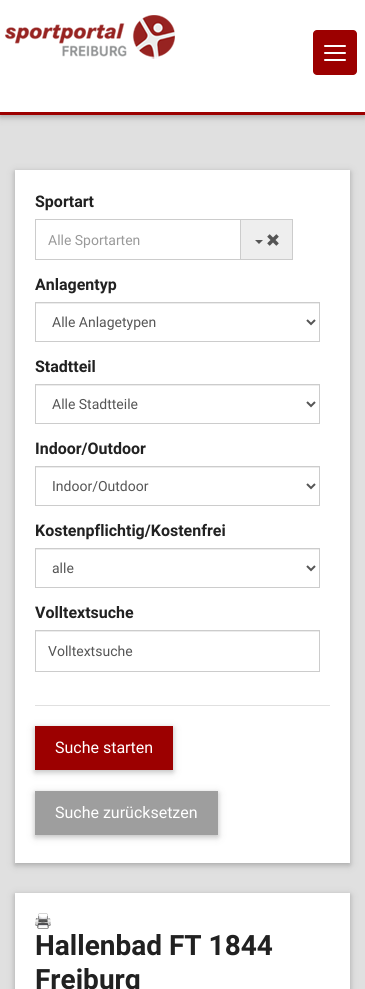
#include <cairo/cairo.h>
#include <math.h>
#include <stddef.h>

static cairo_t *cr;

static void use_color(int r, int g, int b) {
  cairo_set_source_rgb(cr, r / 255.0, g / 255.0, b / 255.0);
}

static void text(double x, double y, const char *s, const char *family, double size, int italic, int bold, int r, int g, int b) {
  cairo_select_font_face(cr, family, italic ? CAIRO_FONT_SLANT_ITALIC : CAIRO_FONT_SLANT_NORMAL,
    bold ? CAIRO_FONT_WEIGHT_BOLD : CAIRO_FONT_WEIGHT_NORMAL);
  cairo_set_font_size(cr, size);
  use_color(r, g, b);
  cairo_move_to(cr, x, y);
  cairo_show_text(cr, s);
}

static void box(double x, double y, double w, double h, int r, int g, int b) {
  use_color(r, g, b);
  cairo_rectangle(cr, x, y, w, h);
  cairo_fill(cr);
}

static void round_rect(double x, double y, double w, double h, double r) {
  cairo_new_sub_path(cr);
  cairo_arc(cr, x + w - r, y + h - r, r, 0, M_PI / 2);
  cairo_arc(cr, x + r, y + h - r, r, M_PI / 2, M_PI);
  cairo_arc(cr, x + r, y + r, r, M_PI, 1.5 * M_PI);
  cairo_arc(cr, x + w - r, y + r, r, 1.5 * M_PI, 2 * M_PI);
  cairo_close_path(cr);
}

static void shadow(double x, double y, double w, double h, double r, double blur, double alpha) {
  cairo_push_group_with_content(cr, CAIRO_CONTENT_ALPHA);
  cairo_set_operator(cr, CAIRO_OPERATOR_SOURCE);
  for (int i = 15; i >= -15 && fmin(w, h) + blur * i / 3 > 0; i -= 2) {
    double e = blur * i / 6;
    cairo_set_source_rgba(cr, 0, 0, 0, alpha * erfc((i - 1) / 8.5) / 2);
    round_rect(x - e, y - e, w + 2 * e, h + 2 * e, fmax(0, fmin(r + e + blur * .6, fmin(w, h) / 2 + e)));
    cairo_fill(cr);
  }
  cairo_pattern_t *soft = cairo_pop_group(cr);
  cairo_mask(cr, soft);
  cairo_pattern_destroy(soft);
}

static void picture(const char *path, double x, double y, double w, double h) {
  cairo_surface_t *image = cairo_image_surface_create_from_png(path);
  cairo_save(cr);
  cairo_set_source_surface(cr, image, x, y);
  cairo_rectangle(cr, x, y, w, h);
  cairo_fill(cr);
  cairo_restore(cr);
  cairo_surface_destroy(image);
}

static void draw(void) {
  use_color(224, 224, 224);
  cairo_paint(cr);
  use_color(0, 0, 0);
  shadow(0, 2, 365, 115, 0, 5, 0.12);
  shadow(0, 2, 365, 115, 0, 2.5, 0.16);
  box(0, 0, 365, 112, 255, 255, 255);
  box(0, 112, 365, 3, 156, 0, 0);
  picture("img_01.png", 5, 15, 170, 44);
  round_rect(313, 30, 44, 45, 4);
  cairo_fill(cr);
  use_color(255, 255, 255);
  round_rect(324, 45, 22, 2, 1);
  cairo_fill(cr);
  round_rect(324, 52, 22, 2, 1);
  cairo_fill(cr);
  round_rect(324, 59, 22, 2, 1);
  cairo_fill(cr);
  use_color(0, 0, 0);
  shadow(15, 172, 335, 693, 0, 5, 0.12);
  shadow(15, 172, 335, 693, 0, 2.5, 0.16);
  box(15, 170, 335, 693, 255, 255, 255);
  cairo_rectangle(cr, 35.5, 219.5, 205, 40);
  use_color(204, 204, 204);
  cairo_set_line_width(cr, 1);
  cairo_stroke(cr);
  box(241, 220, 51, 39, 238, 238, 238);
  box(241, 219, 52, 1, 204, 204, 204);
  box(292, 219, 1, 41, 204, 204, 204);
  box(241, 259, 52, 1, 204, 204, 204);
  use_color(85, 85, 85);
  cairo_new_path(cr);
  cairo_move_to(cr, 255, 240);
  cairo_line_to(cr, 263, 240);
  cairo_line_to(cr, 259, 244);
  cairo_close_path(cr);
  cairo_fill(cr);
  picture("img_02.png", 267, 234, 12, 12);
  box(36, 303, 283, 1, 236, 236, 236);
  cairo_rectangle(cr, 35.5, 302.5, 284, 39);
  use_color(204, 204, 204);
  cairo_stroke(cr);
  cairo_new_path(cr);
  cairo_move_to(cr, 307, 320);
  cairo_line_to(cr, 311, 324);
  cairo_line_to(cr, 315, 320);
  use_color(85, 85, 85);
  cairo_set_line_width(cr, 2);
  cairo_stroke(cr);
  box(36, 385, 283, 1, 236, 236, 236);
  cairo_rectangle(cr, 35.5, 384.5, 284, 39);
  use_color(204, 204, 204);
  cairo_set_line_width(cr, 1);
  cairo_stroke(cr);
  cairo_new_path(cr);
  cairo_move_to(cr, 307, 402);
  cairo_line_to(cr, 311, 406);
  cairo_line_to(cr, 315, 402);
  use_color(85, 85, 85);
  cairo_set_line_width(cr, 2);
  cairo_stroke(cr);
  box(36, 467, 283, 1, 236, 236, 236);
  cairo_rectangle(cr, 35.5, 466.5, 284, 39);
  use_color(204, 204, 204);
  cairo_set_line_width(cr, 1);
  cairo_stroke(cr);
  cairo_new_path(cr);
  cairo_move_to(cr, 307, 484);
  cairo_line_to(cr, 311, 488);
  cairo_line_to(cr, 315, 484);
  use_color(85, 85, 85);
  cairo_set_line_width(cr, 2);
  cairo_stroke(cr);
  box(36, 549, 283, 1, 236, 236, 236);
  cairo_rectangle(cr, 35.5, 548.5, 284, 39);
  use_color(204, 204, 204);
  cairo_set_line_width(cr, 1);
  cairo_stroke(cr);
  cairo_new_path(cr);
  cairo_move_to(cr, 307, 566);
  cairo_line_to(cr, 311, 570);
  cairo_line_to(cr, 315, 566);
  use_color(85, 85, 85);
  cairo_set_line_width(cr, 2);
  cairo_stroke(cr);
  box(36, 631, 283, 1, 236, 236, 236);
  cairo_rectangle(cr, 35.5, 630.5, 284, 41);
  use_color(204, 204, 204);
  cairo_set_line_width(cr, 1);
  cairo_stroke(cr);
  box(35, 705, 295, 1, 224, 224, 224);
  use_color(0, 0, 0);
  shadow(35, 728, 138, 44, 0, 5, 0.12);
  shadow(35, 728, 138, 44, 0, 2.5, 0.16);
  box(35, 726, 138, 44, 156, 0, 0);
  use_color(0, 0, 0);
  shadow(35, 793, 183, 44, 0, 5, 0.12);
  shadow(35, 793, 183, 44, 0, 2.5, 0.16);
  box(35, 791, 183, 44, 158, 158, 158);
  use_color(0, 0, 0);
  shadow(15, 895, 335, 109, 0, 5, 0.12);
  shadow(15, 895, 335, 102, 0, 2.5, 0.16);
  box(15, 893, 335, 96, 255, 255, 255);
  picture("img_03.png", 35, 913, 16, 16);
  text(35, 207, "Sportart", "Roboto", 16, 0, 1, 33, 33, 33);
  text(48, 245, "Alle Sportarten", "Roboto", 14, 0, 0, 153, 153, 153);
  text(35, 290, "Anlagentyp", "Roboto", 16, 0, 1, 33, 33, 33);
  text(52, 327, "Alle Anlagetypen", "Roboto", 14, 0, 0, 85, 85, 85);
  text(35, 372, "Stadtteil", "Roboto", 16, 0, 1, 33, 33, 33);
  text(52, 409, "Alle Stadtteile", "Roboto", 14, 0, 0, 85, 85, 85);
  text(35, 454, "Indoor/Outdoor", "Roboto", 16, 0, 1, 33, 33, 33);
  text(52, 491, "Indoor/Outdoor", "Roboto", 14, 0, 0, 85, 85, 85);
  text(35, 536, "Kostenpflichtig/Kostenfrei", "Roboto", 16, 0, 1, 33, 33, 33);
  text(52, 573, "alle", "Roboto", 14, 0, 0, 85, 85, 85);
  text(35, 618, "Volltextsuche", "Roboto", 16, 0, 1, 33, 33, 33);
  text(48, 656, "Volltextsuche", "Roboto", 14, 0, 0, 85, 85, 85);
  text(55, 753, "Suche starten", "Roboto", 16, 0, 0, 255, 255, 255);
  text(55, 818, "Suche zurücksetzen", "Roboto", 16, 0, 0, 255, 255, 255);
  text(35, 955, "Hallenbad FT 1844", "Roboto", 28, 0, 1, 33, 33, 33);
  text(35, 989, "Freiburg", "Roboto", 28, 0, 1, 33, 33, 33);
}

int main(void) {
  cairo_surface_t *surface = cairo_image_surface_create(CAIRO_FORMAT_RGB24, 365, 989);
  cr = cairo_create(surface);
  cairo_font_options_t *options = cairo_font_options_create();
  cairo_font_options_set_hint_metrics(options, CAIRO_HINT_METRICS_OFF);
  cairo_font_options_set_hint_style(options, CAIRO_HINT_STYLE_NONE);
  cairo_set_font_options(cr, options);
  cairo_set_miter_limit(cr, 4);
  draw();
  cairo_surface_write_to_png(surface, "out.png");
  cairo_font_options_destroy(options);
  cairo_destroy(cr);
  cairo_surface_destroy(surface);
  return 0;
}
